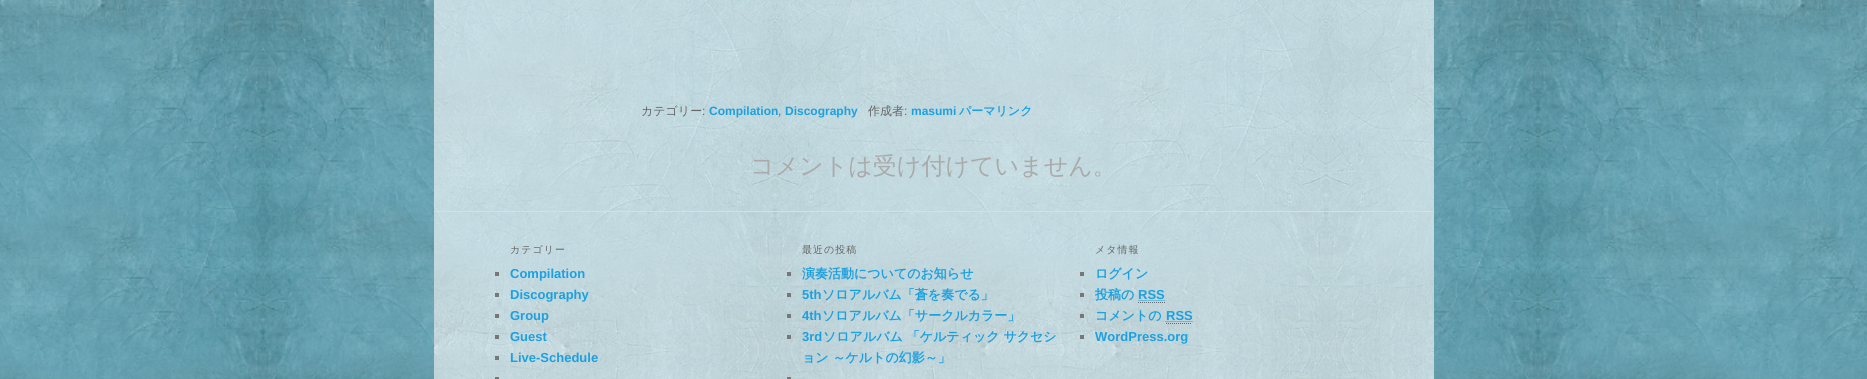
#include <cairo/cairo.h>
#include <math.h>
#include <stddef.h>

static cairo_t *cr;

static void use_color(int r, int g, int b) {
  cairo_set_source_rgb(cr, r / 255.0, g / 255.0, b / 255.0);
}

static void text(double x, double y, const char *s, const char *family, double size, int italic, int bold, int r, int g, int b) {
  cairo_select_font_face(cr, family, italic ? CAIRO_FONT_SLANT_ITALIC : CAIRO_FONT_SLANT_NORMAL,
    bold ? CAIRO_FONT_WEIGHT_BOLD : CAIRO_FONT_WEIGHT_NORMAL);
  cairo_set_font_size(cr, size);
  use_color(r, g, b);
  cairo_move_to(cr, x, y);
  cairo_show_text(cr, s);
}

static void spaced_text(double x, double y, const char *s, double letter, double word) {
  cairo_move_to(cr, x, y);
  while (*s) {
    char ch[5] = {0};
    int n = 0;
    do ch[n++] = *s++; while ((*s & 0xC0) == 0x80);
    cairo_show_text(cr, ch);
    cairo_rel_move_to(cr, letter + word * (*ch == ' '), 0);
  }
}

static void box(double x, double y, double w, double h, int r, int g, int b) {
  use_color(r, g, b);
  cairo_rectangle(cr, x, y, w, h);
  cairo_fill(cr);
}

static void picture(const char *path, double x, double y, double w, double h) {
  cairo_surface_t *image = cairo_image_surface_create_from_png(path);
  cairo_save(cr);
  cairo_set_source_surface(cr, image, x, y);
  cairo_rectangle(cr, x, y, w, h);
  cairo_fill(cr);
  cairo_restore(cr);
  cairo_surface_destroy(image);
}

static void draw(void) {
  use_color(255, 255, 255);
  cairo_paint(cr);
  picture("img_01.png", 0, 0, 1867, 379);
  picture("img_02.png", 434, 0, 1000, 379);
  box(434, 211, 1000, 1, 221, 221, 221);
  box(495, 272, 4, 4, 119, 119, 119);
  box(495, 293, 4, 4, 119, 119, 119);
  box(495, 314, 4, 4, 119, 119, 119);
  box(495, 335, 4, 4, 119, 119, 119);
  box(495, 356, 4, 4, 119, 119, 119);
  box(495, 377, 4, 2, 119, 119, 119);
  box(787, 272, 4, 4, 119, 119, 119);
  box(787, 293, 4, 4, 119, 119, 119);
  box(787, 314, 4, 4, 119, 119, 119);
  box(787, 335, 4, 4, 119, 119, 119);
  box(787, 377, 4, 2, 119, 119, 119);
  box(1080, 272, 4, 4, 119, 119, 119);
  box(1080, 293, 4, 4, 119, 119, 119);
  cairo_new_path(cr);
  cairo_move_to(cr, 1138, 302.5);
  cairo_line_to(cr, 1165, 302.5);
  use_color(102, 102, 102);
  cairo_set_line_width(cr, 1);
  cairo_set_dash(cr, (double[]){1, 1}, 2, 0);
  cairo_stroke(cr);
  cairo_new_path(cr);
  cairo_move_to(cr, 1138.5, 300.5);
  cairo_line_to(cr, 1165, 300.5);
  use_color(27, 160, 224);
  cairo_stroke(cr);
  box(1080, 314, 4, 4, 119, 119, 119);
  cairo_new_path(cr);
  cairo_move_to(cr, 1166, 323.5);
  cairo_line_to(cr, 1192, 323.5);
  use_color(102, 102, 102);
  cairo_stroke(cr);
  cairo_new_path(cr);
  cairo_move_to(cr, 1165.5, 321.5);
  cairo_line_to(cr, 1192.5, 321.5);
  use_color(27, 160, 224);
  cairo_stroke(cr);
  box(1080, 335, 4, 4, 119, 119, 119);
  text(641, 115, "カテゴリー", "WenQuanYi Zen Hei Medium", 12, 0, 0, 102, 102, 102);
  text(702, 115, ":", "Liberation Sans", 12, 0, 0, 102, 102, 102);
  text(709, 115, "Compilation", "Liberation Sans", 12, 0, 1, 27, 160, 224);
  text(778, 115, ",", "Liberation Sans", 12, 0, 0, 102, 102, 102);
  text(785, 115, "Discography", "Liberation Sans", 12, 0, 1, 27, 160, 224);
  text(868, 115, "作成者", "WenQuanYi Zen Hei Medium", 12, 0, 0, 102, 102, 102);
  text(904, 115, ":", "Liberation Sans", 12, 0, 0, 102, 102, 102);
  text(911, 115, "masumi", "Liberation Sans", 12, 0, 1, 27, 160, 224);
  text(959, 115, "パーマリンク", "WenQuanYi Zen Hei", 12, 0, 1, 27, 160, 224);
  text(750, 174, "コメントは受け付けていません。", "WenQuanYi Zen Hei Medium", 24, 0, 0, 170, 170, 170);
  cairo_set_font_size(cr, 10);
  use_color(102, 102, 102);
  spaced_text(510, 253, "カテゴリー", 1, 0);
  text(510, 278, "Compilation", "Liberation Sans", 13, 0, 1, 27, 160, 224);
  text(510, 299, "Discography", "Liberation Sans", 13, 0, 1, 27, 160, 224);
  text(510, 320, "Group", "Liberation Sans", 13, 0, 1, 27, 160, 224);
  text(510, 341, "Guest", "Liberation Sans", 13, 0, 1, 27, 160, 224);
  text(510, 362, "Live-Schedule", "Liberation Sans", 13, 0, 1, 27, 160, 224);
  cairo_select_font_face(cr, "WenQuanYi Zen Hei Medium", CAIRO_FONT_SLANT_NORMAL, CAIRO_FONT_WEIGHT_NORMAL);
  cairo_set_font_size(cr, 10);
  use_color(102, 102, 102);
  spaced_text(802, 253, "最近の投稿", 1, 0);
  text(802, 278, "演奏活動についてのお知らせ", "WenQuanYi Zen Hei", 13, 0, 1, 27, 160, 224);
  text(802, 299, "5th", "Liberation Sans", 13, 0, 1, 27, 160, 224);
  text(822, 299, "ソロアルバム「蒼を奏でる」", "WenQuanYi Zen Hei", 13, 0, 1, 27, 160, 224);
  text(802, 320, "4th", "Liberation Sans", 13, 0, 1, 27, 160, 224);
  text(822, 320, "ソロアルバム「サークルカラー」", "WenQuanYi Zen Hei", 13, 0, 1, 27, 160, 224);
  text(802, 341, "3rd", "Liberation Sans", 13, 0, 1, 27, 160, 224);
  text(823, 341, "ソロアルバム 「ケルティック サクセシ", "WenQuanYi Zen Hei", 13, 0, 1, 27, 160, 224);
  text(802, 362, "ョン ～ケルトの幻影～」", "WenQuanYi Zen Hei", 13, 0, 1, 27, 160, 224);
  cairo_select_font_face(cr, "WenQuanYi Zen Hei Medium", CAIRO_FONT_SLANT_NORMAL, CAIRO_FONT_WEIGHT_NORMAL);
  cairo_set_font_size(cr, 10);
  use_color(102, 102, 102);
  spaced_text(1095, 253, "メタ情報", 1, 0);
  text(1095, 278, "ログイン", "WenQuanYi Zen Hei", 13, 0, 1, 27, 160, 224);
  text(1095, 299, "投稿の", "WenQuanYi Zen Hei", 13, 0, 1, 27, 160, 224);
  text(1138, 299, "RSS", "Liberation Sans", 13, 0, 1, 27, 160, 224);
  text(1095, 320, "コメントの", "WenQuanYi Zen Hei", 13, 0, 1, 27, 160, 224);
  text(1166, 320, "RSS", "Liberation Sans", 13, 0, 1, 27, 160, 224);
  text(1095, 341, "WordPress.org", "Liberation Sans", 13, 0, 1, 27, 160, 224);
}

int main(void) {
  cairo_surface_t *surface = cairo_image_surface_create(CAIRO_FORMAT_RGB24, 1867, 379);
  cr = cairo_create(surface);
  cairo_font_options_t *options = cairo_font_options_create();
  cairo_font_options_set_hint_metrics(options, CAIRO_HINT_METRICS_OFF);
  cairo_font_options_set_hint_style(options, CAIRO_HINT_STYLE_NONE);
  cairo_set_font_options(cr, options);
  cairo_set_miter_limit(cr, 4);
  draw();
  cairo_surface_write_to_png(surface, "out.png");
  cairo_font_options_destroy(options);
  cairo_destroy(cr);
  cairo_surface_destroy(surface);
  return 0;
}
